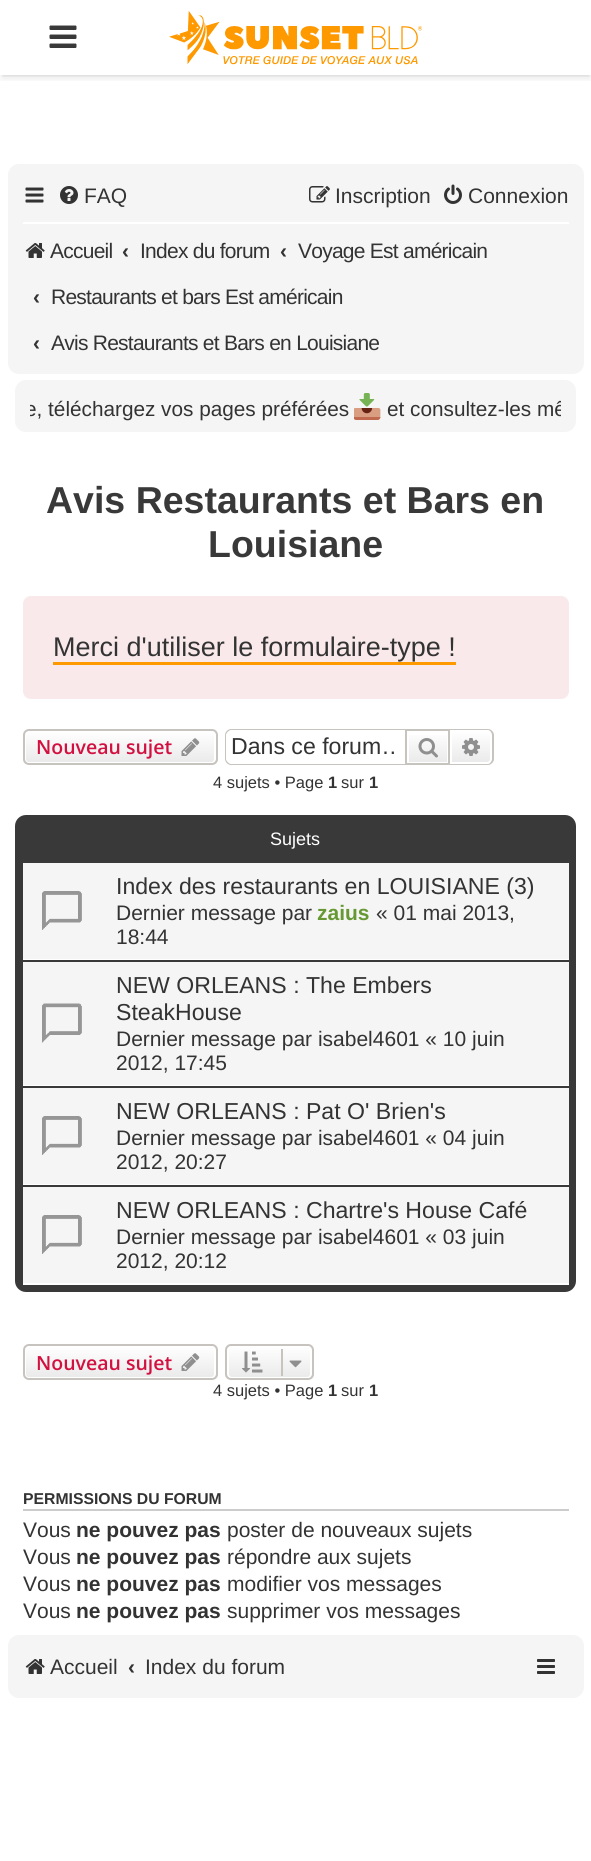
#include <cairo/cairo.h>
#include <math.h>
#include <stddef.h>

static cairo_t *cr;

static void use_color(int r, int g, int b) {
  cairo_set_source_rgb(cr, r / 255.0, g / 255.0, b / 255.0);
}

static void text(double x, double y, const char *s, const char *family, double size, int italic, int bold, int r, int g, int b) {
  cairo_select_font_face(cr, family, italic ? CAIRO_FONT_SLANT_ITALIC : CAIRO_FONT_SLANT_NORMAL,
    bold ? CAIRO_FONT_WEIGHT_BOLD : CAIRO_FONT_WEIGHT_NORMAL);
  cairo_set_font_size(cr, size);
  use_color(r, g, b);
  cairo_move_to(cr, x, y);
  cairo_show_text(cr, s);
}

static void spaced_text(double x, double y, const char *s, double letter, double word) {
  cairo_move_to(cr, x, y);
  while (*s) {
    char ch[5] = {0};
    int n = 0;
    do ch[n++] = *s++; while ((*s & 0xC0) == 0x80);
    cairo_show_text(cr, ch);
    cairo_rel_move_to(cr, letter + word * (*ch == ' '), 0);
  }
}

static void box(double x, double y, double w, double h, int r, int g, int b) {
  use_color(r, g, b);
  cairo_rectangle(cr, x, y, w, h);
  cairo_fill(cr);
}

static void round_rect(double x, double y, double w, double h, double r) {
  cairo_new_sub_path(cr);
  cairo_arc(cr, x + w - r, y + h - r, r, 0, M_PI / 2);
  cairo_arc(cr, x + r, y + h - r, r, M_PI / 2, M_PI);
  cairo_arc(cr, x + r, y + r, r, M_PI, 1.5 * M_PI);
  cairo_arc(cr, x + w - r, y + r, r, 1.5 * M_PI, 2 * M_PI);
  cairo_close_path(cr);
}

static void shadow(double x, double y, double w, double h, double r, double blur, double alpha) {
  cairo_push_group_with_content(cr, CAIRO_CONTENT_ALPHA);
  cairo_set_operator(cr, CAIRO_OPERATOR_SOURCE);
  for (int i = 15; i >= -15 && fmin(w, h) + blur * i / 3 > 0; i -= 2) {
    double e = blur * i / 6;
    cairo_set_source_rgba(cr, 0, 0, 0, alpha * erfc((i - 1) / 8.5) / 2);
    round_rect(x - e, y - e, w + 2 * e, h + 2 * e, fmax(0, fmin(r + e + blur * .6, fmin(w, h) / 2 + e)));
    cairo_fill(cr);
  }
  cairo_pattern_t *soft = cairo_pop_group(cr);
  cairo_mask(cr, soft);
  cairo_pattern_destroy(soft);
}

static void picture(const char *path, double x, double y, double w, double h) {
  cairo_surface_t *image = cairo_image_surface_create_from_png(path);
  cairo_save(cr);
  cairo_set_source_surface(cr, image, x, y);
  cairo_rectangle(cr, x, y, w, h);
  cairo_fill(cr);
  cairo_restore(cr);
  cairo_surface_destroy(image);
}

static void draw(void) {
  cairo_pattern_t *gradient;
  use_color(255, 255, 255);
  cairo_paint(cr);
  cairo_save(cr);
  cairo_rectangle(cr, 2, 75, 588, 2);
  cairo_clip(cr);
  use_color(0, 0, 0);
  shadow(2, 5, 588, 72, 0, 1, 0.05);
  cairo_restore(cr);
  cairo_save(cr);
  cairo_rectangle(cr, 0, 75, 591, 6);
  cairo_clip(cr);
  use_color(0, 0, 0);
  shadow(2, 6, 588, 72, 0, 4, 0.1);
  cairo_restore(cr);
  picture("img_01.png", 49, 25, 28, 23);
  picture("img_02.png", 169, 11, 253, 54);
  use_color(245, 245, 245);
  round_rect(8, 164, 576, 210, 11);
  cairo_fill(cr);
  picture("img_03.png", 25, 187, 19, 16);
  picture("img_04.png", 60, 186, 18, 18);
  picture("img_05.png", 309, 186, 21, 17);
  picture("img_06.png", 444, 184, 18, 20);
  box(23, 222, 546, 2, 255, 255, 255);
  picture("img_07.png", 25, 243, 20, 15);
  use_color(245, 245, 245);
  round_rect(15, 380, 561, 52, 11);
  cairo_fill(cr);
  picture("img_08.png", 354, 393, 27, 27);
  use_color(249, 233, 235);
  round_rect(23, 596, 546, 103, 8);
  cairo_fill(cr);
  box(53, 662, 403, 3, 255, 153, 0);
  cairo_save(cr);
  round_rect(23, 729, 195, 36, 6);
  cairo_clip(cr);
  gradient = cairo_pattern_create_linear(120, 731, 120, 764);
  cairo_pattern_add_color_stop_rgba(gradient, 0, 1, 1, 1, 1);
  cairo_pattern_add_color_stop_rgba(gradient, 1, 0.914, 0.914, 0.914, 1);
  cairo_set_source(cr, gradient);
  cairo_pattern_destroy(gradient);
  cairo_rectangle(cr, 23, 731, 195, 33);
  cairo_fill(cr);
  cairo_restore(cr);
  round_rect(25, 732, 190, 31, 4);
  use_color(255, 255, 255);
  cairo_stroke(cr);
  round_rect(24, 730, 193, 34, 5);
  use_color(199, 195, 191);
  cairo_stroke(cr);
  picture("img_09.png", 181, 738, 19, 18);
  cairo_set_fill_rule(cr, CAIRO_FILL_RULE_EVEN_ODD);
  cairo_new_path(cr);
  cairo_move_to(cr, 231, 729);
  cairo_line_to(cr, 405, 729);
  cairo_line_to(cr, 405, 765);
  cairo_line_to(cr, 231, 765);
  cairo_curve_to(cr, 228, 765, 225, 762, 225, 759);
  cairo_line_to(cr, 225, 735);
  cairo_curve_to(cr, 225, 732, 228, 729, 231, 729);
  cairo_close_path(cr);
  cairo_move_to(cr, 231, 730);
  cairo_line_to(cr, 405, 730);
  cairo_line_to(cr, 405, 764);
  cairo_line_to(cr, 231, 764);
  cairo_curve_to(cr, 229, 764, 226, 761, 226, 759);
  cairo_line_to(cr, 226, 735);
  cairo_curve_to(cr, 226, 733, 229, 730, 231, 730);
  cairo_close_path(cr);
  cairo_fill(cr);
  gradient = cairo_pattern_create_linear(428, 731, 428, 764);
  cairo_pattern_add_color_stop_rgba(gradient, 0, 1, 1, 1, 1);
  cairo_pattern_add_color_stop_rgba(gradient, 1, 0.914, 0.914, 0.914, 1);
  cairo_set_source(cr, gradient);
  cairo_pattern_destroy(gradient);
  cairo_rectangle(cr, 409, 735, 38, 27);
  cairo_fill(cr);
  cairo_rectangle(cr, 406, 730, 43, 34);
  use_color(199, 195, 191);
  cairo_stroke(cr);
  picture("img_10.png", 418, 738, 20, 20);
  gradient = cairo_pattern_create_linear(471, 731, 471, 764);
  cairo_pattern_add_color_stop_rgba(gradient, 0, 1, 1, 1, 1);
  cairo_pattern_add_color_stop_rgba(gradient, 1, 0.914, 0.914, 0.914, 1);
  cairo_set_source(cr, gradient);
  cairo_pattern_destroy(gradient);
  cairo_new_path(cr);
  cairo_move_to(cr, 451, 732);
  cairo_line_to(cr, 487, 732);
  cairo_curve_to(cr, 489, 732, 491, 734, 491, 736);
  cairo_line_to(cr, 491, 759);
  cairo_curve_to(cr, 491, 761, 489, 763, 487, 763);
  cairo_line_to(cr, 451, 763);
  cairo_close_path(cr);
  cairo_fill_preserve(cr);
  use_color(255, 255, 255);
  cairo_stroke(cr);
  use_color(199, 195, 191);
  cairo_new_path(cr);
  cairo_move_to(cr, 450, 729);
  cairo_line_to(cr, 488, 729);
  cairo_curve_to(cr, 491, 729, 494, 732, 494, 735);
  cairo_line_to(cr, 494, 759);
  cairo_curve_to(cr, 494, 762, 491, 765, 488, 765);
  cairo_line_to(cr, 450, 765);
  cairo_close_path(cr);
  cairo_move_to(cr, 450, 730);
  cairo_line_to(cr, 488, 730);
  cairo_curve_to(cr, 490, 730, 492, 733, 492, 735);
  cairo_line_to(cr, 492, 759);
  cairo_curve_to(cr, 492, 761, 490, 764, 488, 764);
  cairo_line_to(cr, 450, 764);
  cairo_close_path(cr);
  cairo_fill(cr);
  picture("img_11.png", 462, 738, 18, 18);
  use_color(57, 57, 57);
  round_rect(15, 815, 561, 477, 11);
  cairo_fill(cr);
  box(23, 863, 546, 96, 245, 245, 245);
  box(23, 959, 546, 1, 255, 255, 255);
  picture("img_12.png", 42, 891, 40, 39);
  box(23, 962, 546, 123, 245, 245, 245);
  box(23, 1085, 546, 1, 255, 255, 255);
  picture("img_13.png", 42, 1003, 40, 40);
  box(23, 1088, 546, 96, 245, 245, 245);
  box(23, 1184, 546, 1, 255, 255, 255);
  picture("img_12.png", 42, 1116, 40, 39);
  box(23, 1187, 546, 96, 245, 245, 245);
  box(23, 1283, 546, 2, 255, 255, 255);
  picture("img_12.png", 42, 1215, 40, 39);
  cairo_save(cr);
  cairo_set_fill_rule(cr, CAIRO_FILL_RULE_WINDING);
  round_rect(23, 1344, 195, 36, 6);
  cairo_clip(cr);
  gradient = cairo_pattern_create_linear(120, 1346, 120, 1379);
  cairo_pattern_add_color_stop_rgba(gradient, 0, 1, 1, 1, 1);
  cairo_pattern_add_color_stop_rgba(gradient, 1, 0.914, 0.914, 0.914, 1);
  cairo_set_source(cr, gradient);
  cairo_pattern_destroy(gradient);
  cairo_rectangle(cr, 23, 1346, 195, 33);
  cairo_fill(cr);
  cairo_restore(cr);
  round_rect(25, 1347, 190, 31, 4);
  cairo_stroke(cr);
  round_rect(24, 1345, 193, 34, 5);
  use_color(199, 195, 191);
  cairo_stroke(cr);
  picture("img_09.png", 181, 1353, 19, 18);
  cairo_save(cr);
  cairo_set_fill_rule(cr, CAIRO_FILL_RULE_WINDING);
  round_rect(225, 1344, 89, 36, 6);
  cairo_clip(cr);
  gradient = cairo_pattern_create_linear(269, 1346, 269, 1379);
  cairo_pattern_add_color_stop_rgba(gradient, 0, 1, 1, 1, 1);
  cairo_pattern_add_color_stop_rgba(gradient, 1, 0.914, 0.914, 0.914, 1);
  cairo_set_source(cr, gradient);
  cairo_pattern_destroy(gradient);
  cairo_rectangle(cr, 225, 1346, 89, 33);
  cairo_fill(cr);
  cairo_restore(cr);
  round_rect(228, 1347, 83, 31, 4);
  use_color(255, 255, 255);
  cairo_stroke(cr);
  round_rect(226, 1345, 87, 34, 5);
  use_color(199, 195, 191);
  cairo_stroke(cr);
  picture("img_14.png", 242, 1351, 21, 22);
  box(281, 1349, 2, 27, 199, 195, 191);
  picture("img_15.png", 289, 1360, 13, 8);
  box(23, 1509, 546, 2, 204, 204, 204);
  use_color(245, 245, 245);
  round_rect(8, 1635, 576, 63, 11);
  cairo_fill(cr);
  picture("img_07.png", 25, 1659, 20, 15);
  picture("img_16.png", 537, 1659, 18, 15);
  text(84, 203, "FAQ", "Liberation Sans", 21, 0, 0, 51, 51, 51);
  text(335, 203, "Inscription", "Liberation Sans", 21, 0, 0, 51, 51, 51);
  text(468, 203, "Connexion", "Liberation Sans", 21, 0, 0, 51, 51, 51);
  spaced_text(50, 258, "Accueil", -0.75, 0);
  text(122, 258, "‹", "Liberation Sans", 21, 0, 1, 51, 51, 51);
  cairo_select_font_face(cr, "Liberation Sans", CAIRO_FONT_SLANT_NORMAL, CAIRO_FONT_WEIGHT_NORMAL);
  spaced_text(140, 258, "Index du forum", -0.75, 0);
  text(280, 258, "‹", "Liberation Sans", 21, 0, 1, 51, 51, 51);
  cairo_select_font_face(cr, "Liberation Sans", CAIRO_FONT_SLANT_NORMAL, CAIRO_FONT_WEIGHT_NORMAL);
  spaced_text(298, 258, "Voyage Est américain", -0.75, 0);
  text(33, 304, "‹", "Liberation Sans", 21, 0, 1, 51, 51, 51);
  cairo_select_font_face(cr, "Liberation Sans", CAIRO_FONT_SLANT_NORMAL, CAIRO_FONT_WEIGHT_NORMAL);
  spaced_text(51, 304, "Restaurants et bars Est américain", -0.75, 0);
  text(33, 350, "‹", "Liberation Sans", 21, 0, 1, 51, 51, 51);
  cairo_select_font_face(cr, "Liberation Sans", CAIRO_FONT_SLANT_NORMAL, CAIRO_FONT_WEIGHT_NORMAL);
  spaced_text(51, 350, "Avis Restaurants et Bars en Louisiane", -0.75, 0);
  cairo_save(cr);
  cairo_set_fill_rule(cr, CAIRO_FILL_RULE_WINDING);
  cairo_rectangle(cr, 30, 384, 531, 41);
  cairo_clip(cr);
  text(25, 416, "e, téléchargez vos pages préférées", "Liberation Sans", 20.75, 0, 0, 51, 51, 51);
  text(387, 416, "et consultez-les mê", "Liberation Sans", 20.75, 0, 0, 51, 51, 51);
  cairo_restore(cr);
  text(46, 513, "Avis Restaurants et Bars en", "Liberation Sans", 37.5, 0, 1, 57, 57, 57);
  text(208, 557, "Louisiane", "Liberation Sans", 37.5, 0, 1, 57, 57, 57);
  text(53, 656, "Merci d'utiliser le formulaire-type !", "Liberation Sans", 27, 0, 0, 51, 51, 51);
  text(36, 754, "Nouveau sujet", "Open Sans SemiBold", 19.5, 0, 0, 211, 17, 65);
  cairo_save(cr);
  cairo_set_fill_rule(cr, CAIRO_FILL_RULE_WINDING);
  cairo_rectangle(cr, 231, 734, 164, 27);
  cairo_clip(cr);
  text(231, 754, "Dans ce forum…", "Liberation Sans", 23.1, 0, 0, 51, 51, 51);
  cairo_restore(cr);
  text(213, 788, "4 sujets • Page", "Liberation Sans", 16.5, 0, 0, 51, 51, 51);
  text(328, 788, "1", "Liberation Sans", 16.5, 0, 1, 51, 51, 51);
  text(341, 788, "sur", "Liberation Sans", 16.5, 0, 0, 51, 51, 51);
  text(369, 788, "1", "Liberation Sans", 16.5, 0, 1, 51, 51, 51);
  text(270, 845, "Sujets", "Liberation Sans", 18, 0, 0, 255, 255, 255);
  text(116, 894, "Index des restaurants en LOUISIANE (3)", "Liberation Sans", 23.1, 0, 0, 51, 51, 51);
  text(116, 920, "Dernier message par", "Liberation Sans", 21, 0, 0, 51, 51, 51);
  text(317, 920, "zaius", "Liberation Sans", 21, 0, 1, 102, 153, 51);
  text(376, 920, "« 01 mai 2013,", "Liberation Sans", 21, 0, 0, 51, 51, 51);
  text(116, 944, "18:44", "Liberation Sans", 21, 0, 0, 51, 51, 51);
  text(116, 993, "NEW ORLEANS : The Embers", "Liberation Sans", 23.1, 0, 0, 51, 51, 51);
  text(116, 1020, "SteakHouse", "Liberation Sans", 23.1, 0, 0, 51, 51, 51);
  text(116, 1046, "Dernier message par isabel4601 « 10 juin", "Liberation Sans", 21, 0, 0, 51, 51, 51);
  text(116, 1070, "2012, 17:45", "Liberation Sans", 21, 0, 0, 51, 51, 51);
  text(116, 1119, "NEW ORLEANS : Pat O' Brien's", "Liberation Sans", 23.1, 0, 0, 51, 51, 51);
  text(116, 1145, "Dernier message par isabel4601 « 04 juin", "Liberation Sans", 21, 0, 0, 51, 51, 51);
  text(116, 1169, "2012, 20:27", "Liberation Sans", 21, 0, 0, 51, 51, 51);
  text(116, 1218, "NEW ORLEANS : Chartre's House Café", "Liberation Sans", 23.1, 0, 0, 51, 51, 51);
  text(116, 1244, "Dernier message par isabel4601 « 03 juin", "Liberation Sans", 21, 0, 0, 51, 51, 51);
  text(116, 1268, "2012, 20:12", "Liberation Sans", 21, 0, 0, 51, 51, 51);
  text(36, 1370, "Nouveau sujet", "Open Sans SemiBold", 19.5, 0, 0, 211, 17, 65);
  text(213, 1396, "4 sujets • Page", "Liberation Sans", 16.5, 0, 0, 51, 51, 51);
  text(328, 1396, "1", "Liberation Sans", 16.5, 0, 1, 51, 51, 51);
  text(341, 1396, "sur", "Liberation Sans", 16.5, 0, 0, 51, 51, 51);
  text(369, 1396, "1", "Liberation Sans", 16.5, 0, 1, 51, 51, 51);
  text(23, 1504, "PERMISSIONS DU FORUM", "Liberation Sans", 15.75, 0, 1, 51, 51, 51);
  text(23, 1537, "Vous", "Liberation Sans", 21, 0, 0, 51, 51, 51);
  text(76, 1537, "ne pouvez pas", "Liberation Sans", 21, 0, 1, 51, 51, 51);
  text(227, 1537, "poster de nouveaux sujets", "Liberation Sans", 21, 0, 0, 51, 51, 51);
  text(23, 1564, "Vous", "Liberation Sans", 21, 0, 0, 51, 51, 51);
  text(76, 1564, "ne pouvez pas", "Liberation Sans", 21, 0, 1, 51, 51, 51);
  text(227, 1564, "répondre aux sujets", "Liberation Sans", 21, 0, 0, 51, 51, 51);
  text(23, 1591, "Vous", "Liberation Sans", 21, 0, 0, 51, 51, 51);
  text(76, 1591, "ne pouvez pas", "Liberation Sans", 21, 0, 1, 51, 51, 51);
  text(227, 1591, "modifier vos messages", "Liberation Sans", 21, 0, 0, 51, 51, 51);
  text(23, 1618, "Vous", "Liberation Sans", 21, 0, 0, 51, 51, 51);
  text(76, 1618, "ne pouvez pas", "Liberation Sans", 21, 0, 1, 51, 51, 51);
  text(227, 1618, "supprimer vos messages", "Liberation Sans", 21, 0, 0, 51, 51, 51);
  text(50, 1674, "Accueil", "Liberation Sans", 21, 0, 0, 51, 51, 51);
  text(128, 1674, "‹", "Liberation Sans", 21, 0, 1, 51, 51, 51);
  text(145, 1674, "Index du forum", "Liberation Sans", 21, 0, 0, 51, 51, 51);
}

int main(void) {
  cairo_surface_t *surface = cairo_image_surface_create(CAIRO_FORMAT_RGB24, 591, 1861);
  cr = cairo_create(surface);
  cairo_font_options_t *options = cairo_font_options_create();
  cairo_font_options_set_hint_metrics(options, CAIRO_HINT_METRICS_OFF);
  cairo_font_options_set_hint_style(options, CAIRO_HINT_STYLE_NONE);
  cairo_set_font_options(cr, options);
  cairo_set_miter_limit(cr, 4);
  draw();
  cairo_surface_write_to_png(surface, "out.png");
  cairo_font_options_destroy(options);
  cairo_destroy(cr);
  cairo_surface_destroy(surface);
  return 0;
}
